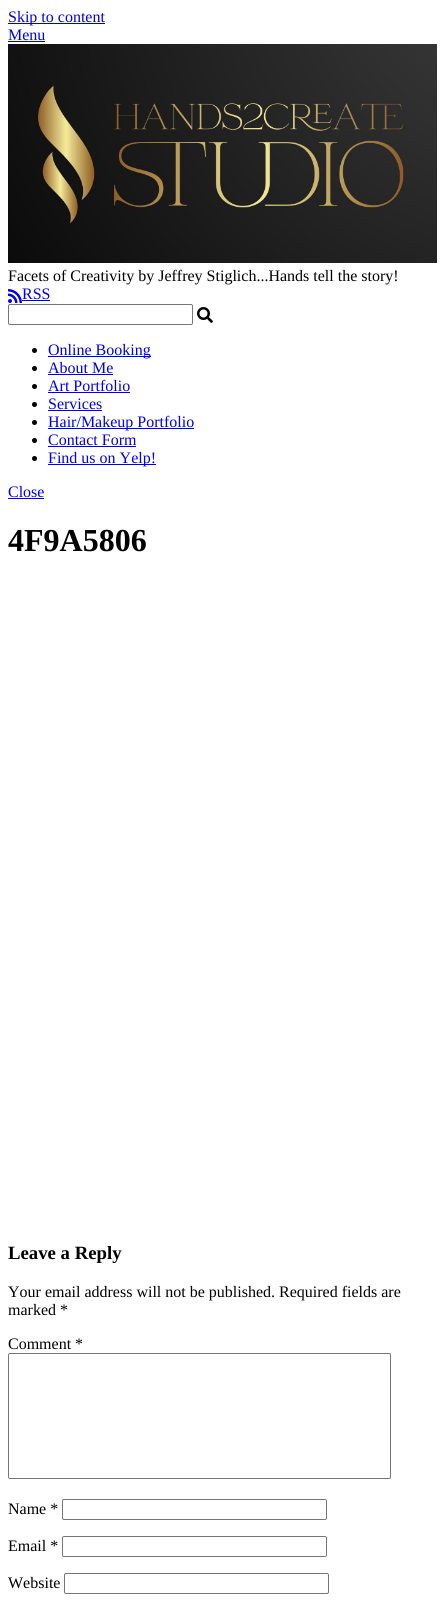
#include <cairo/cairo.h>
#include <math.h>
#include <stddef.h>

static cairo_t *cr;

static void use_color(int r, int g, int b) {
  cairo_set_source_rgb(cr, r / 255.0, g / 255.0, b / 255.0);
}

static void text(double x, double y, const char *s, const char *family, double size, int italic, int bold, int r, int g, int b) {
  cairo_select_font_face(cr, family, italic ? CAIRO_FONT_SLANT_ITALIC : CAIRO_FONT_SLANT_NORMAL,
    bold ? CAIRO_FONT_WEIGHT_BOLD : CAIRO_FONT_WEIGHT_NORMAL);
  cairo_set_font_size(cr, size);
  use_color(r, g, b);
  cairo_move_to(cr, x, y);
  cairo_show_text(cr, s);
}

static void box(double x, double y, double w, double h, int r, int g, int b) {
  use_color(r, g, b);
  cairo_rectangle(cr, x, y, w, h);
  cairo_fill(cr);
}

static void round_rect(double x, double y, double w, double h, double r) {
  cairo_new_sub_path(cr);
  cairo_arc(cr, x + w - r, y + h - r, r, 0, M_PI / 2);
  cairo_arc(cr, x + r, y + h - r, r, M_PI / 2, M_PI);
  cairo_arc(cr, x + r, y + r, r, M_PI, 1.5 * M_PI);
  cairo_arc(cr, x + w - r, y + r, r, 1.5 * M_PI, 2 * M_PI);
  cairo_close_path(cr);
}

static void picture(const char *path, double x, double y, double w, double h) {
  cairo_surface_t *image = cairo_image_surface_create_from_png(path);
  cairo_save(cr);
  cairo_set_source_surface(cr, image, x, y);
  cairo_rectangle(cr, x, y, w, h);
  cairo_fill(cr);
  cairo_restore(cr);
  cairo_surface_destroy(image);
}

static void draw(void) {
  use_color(255, 255, 255);
  cairo_paint(cr);
  box(8, 23, 97, 1, 0, 0, 238);
  box(8, 41, 37, 1, 0, 0, 238);
  picture("img_01.png", 8, 44, 429, 219);
  picture("img_02.png", 8, 289, 14, 14);
  box(22, 300, 28, 1, 0, 0, 238);
  round_rect(8.5, 304.5, 184, 20, 1.5);
  use_color(118, 118, 118);
  cairo_set_line_width(cr, 1);
  cairo_stroke(cr);
  picture("img_03.png", 197, 307, 16, 16);
  use_color(0, 0, 0);
  cairo_arc(cr, 34.5, 350.5, 2.5, 0, 2 * M_PI);
  cairo_fill(cr);
  box(48, 356, 103, 1, 0, 0, 238);
  use_color(0, 0, 0);
  cairo_arc(cr, 34.5, 368.5, 2.5, 0, 2 * M_PI);
  cairo_fill(cr);
  box(48, 374, 65, 1, 0, 0, 238);
  use_color(0, 0, 0);
  cairo_arc(cr, 34.5, 386.5, 2.5, 0, 2 * M_PI);
  cairo_fill(cr);
  box(48, 392, 82, 1, 0, 0, 238);
  use_color(0, 0, 0);
  cairo_arc(cr, 34.5, 404.5, 2.5, 0, 2 * M_PI);
  cairo_fill(cr);
  box(48, 410, 54, 1, 0, 0, 238);
  use_color(0, 0, 0);
  cairo_arc(cr, 34.5, 422.5, 2.5, 0, 2 * M_PI);
  cairo_fill(cr);
  box(48, 428, 146, 1, 0, 0, 238);
  use_color(0, 0, 0);
  cairo_arc(cr, 34.5, 440.5, 2.5, 0, 2 * M_PI);
  cairo_fill(cr);
  box(48, 446, 88, 1, 0, 0, 238);
  use_color(0, 0, 0);
  cairo_arc(cr, 34.5, 458.5, 2.5, 0, 2 * M_PI);
  cairo_fill(cr);
  box(48, 464, 108, 1, 0, 0, 238);
  box(8, 498, 36, 1, 0, 0, 238);
  round_rect(8.5, 1353.5, 382, 125, 1.5);
  use_color(118, 118, 118);
  cairo_stroke(cr);
  round_rect(62.5, 1499.5, 264, 20, 1.5);
  cairo_stroke(cr);
  round_rect(62.5, 1536.5, 264, 20, 1.5);
  cairo_stroke(cr);
  round_rect(64.5, 1573.5, 264, 20, 1.5);
  cairo_stroke(cr);
  text(8, 22, "Skip to content", "Liberation Serif", 16, 0, 0, 0, 0, 238);
  text(8, 40, "Menu", "Liberation Serif", 16, 0, 0, 0, 0, 238);
  text(8, 281, "Facets of Creativity by Jeffrey Stiglich...Hands tell the story!", "Liberation Serif", 16, 0, 0, 0, 0, 0);
  text(22, 299, "RSS", "Liberation Serif", 16, 0, 0, 0, 0, 238);
  text(48, 355, "Online Booking", "Liberation Serif", 16, 0, 0, 0, 0, 238);
  text(48, 373, "About Me", "Liberation Serif", 16, 0, 0, 0, 0, 238);
  text(48, 391, "Art Portfolio", "Liberation Serif", 16, 0, 0, 0, 0, 238);
  text(48, 409, "Services", "Liberation Serif", 16, 0, 0, 0, 0, 238);
  text(48, 427, "Hair/Makeup Portfolio", "Liberation Serif", 16, 0, 0, 0, 0, 238);
  text(48, 445, "Contact Form", "Liberation Serif", 16, 0, 0, 0, 0, 238);
  text(48, 463, "Find us on Yelp!", "Liberation Serif", 16, 0, 0, 0, 0, 238);
  text(8, 497, "Close", "Liberation Serif", 16, 0, 0, 0, 0, 238);
  text(8, 551, "4F9A5806", "Liberation Serif", 32, 0, 1, 0, 0, 0);
  text(8, 1259, "Leave a Reply", "Liberation Serif", 18.75, 0, 1, 0, 0, 0);
  text(8, 1297, "Your email address will not be published. Required fields are", "Liberation Serif", 16, 0, 0, 0, 0, 0);
  text(8, 1315, "marked *", "Liberation Serif", 16, 0, 0, 0, 0, 0);
  text(8, 1349, "Comment *", "Liberation Serif", 16, 0, 0, 0, 0, 0);
  text(8, 1514, "Name *", "Liberation Serif", 16, 0, 0, 0, 0, 0);
  text(8, 1551, "Email *", "Liberation Serif", 16, 0, 0, 0, 0, 0);
  text(8, 1588, "Website", "Liberation Serif", 16, 0, 0, 0, 0, 0);
}

int main(void) {
  cairo_surface_t *surface = cairo_image_surface_create(CAIRO_FORMAT_RGB24, 445, 1607);
  cr = cairo_create(surface);
  cairo_font_options_t *options = cairo_font_options_create();
  cairo_font_options_set_hint_metrics(options, CAIRO_HINT_METRICS_OFF);
  cairo_font_options_set_hint_style(options, CAIRO_HINT_STYLE_NONE);
  cairo_set_font_options(cr, options);
  cairo_set_miter_limit(cr, 4);
  draw();
  cairo_surface_write_to_png(surface, "out.png");
  cairo_font_options_destroy(options);
  cairo_destroy(cr);
  cairo_surface_destroy(surface);
  return 0;
}
